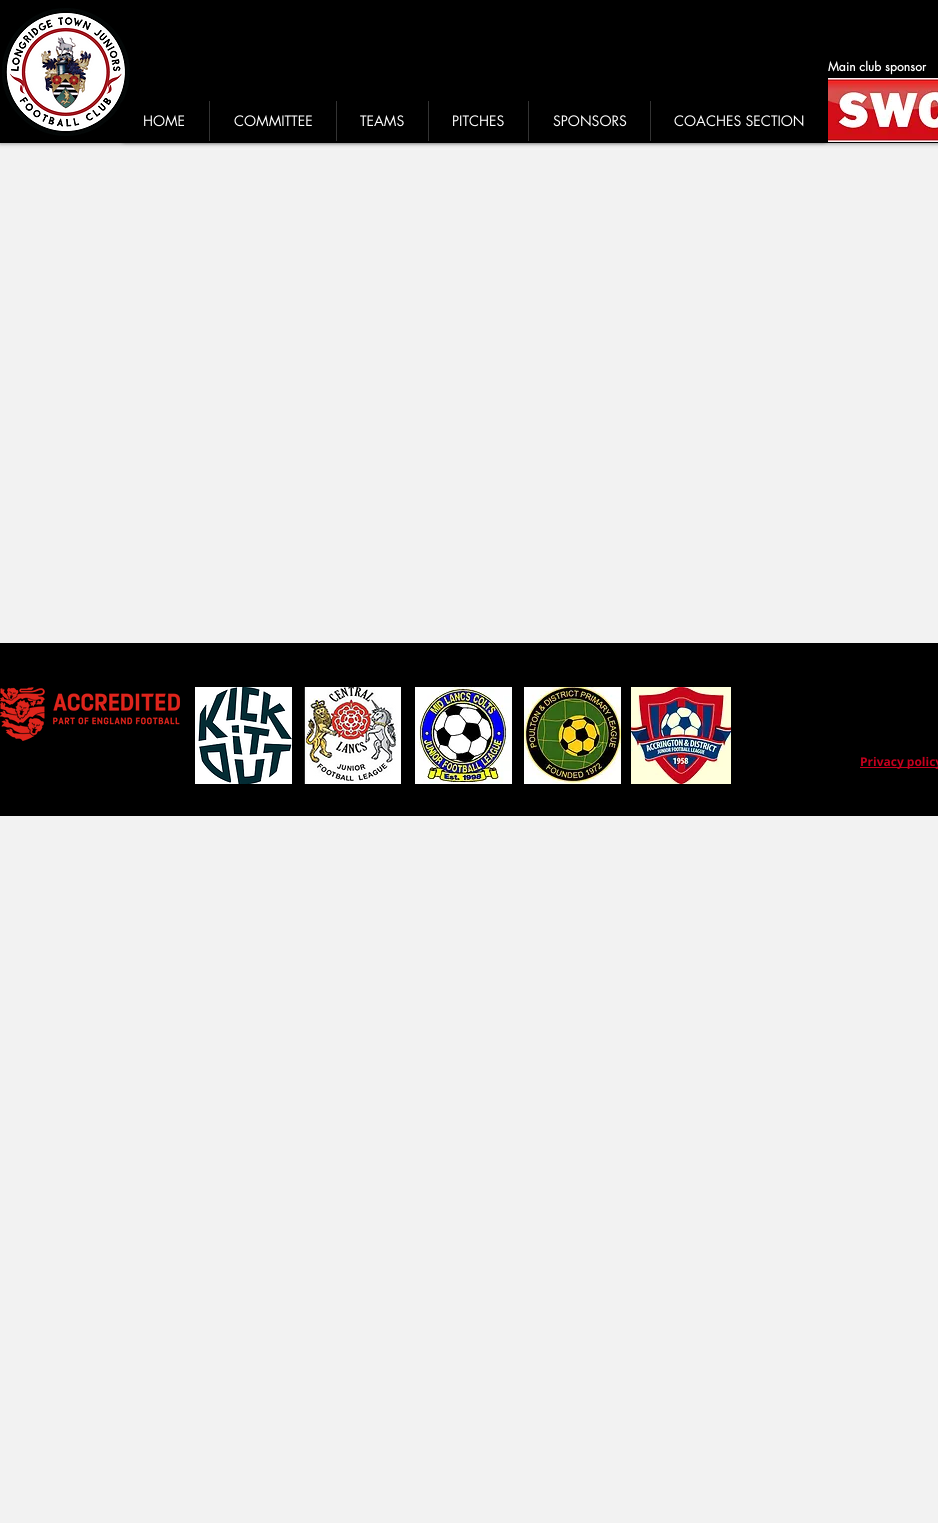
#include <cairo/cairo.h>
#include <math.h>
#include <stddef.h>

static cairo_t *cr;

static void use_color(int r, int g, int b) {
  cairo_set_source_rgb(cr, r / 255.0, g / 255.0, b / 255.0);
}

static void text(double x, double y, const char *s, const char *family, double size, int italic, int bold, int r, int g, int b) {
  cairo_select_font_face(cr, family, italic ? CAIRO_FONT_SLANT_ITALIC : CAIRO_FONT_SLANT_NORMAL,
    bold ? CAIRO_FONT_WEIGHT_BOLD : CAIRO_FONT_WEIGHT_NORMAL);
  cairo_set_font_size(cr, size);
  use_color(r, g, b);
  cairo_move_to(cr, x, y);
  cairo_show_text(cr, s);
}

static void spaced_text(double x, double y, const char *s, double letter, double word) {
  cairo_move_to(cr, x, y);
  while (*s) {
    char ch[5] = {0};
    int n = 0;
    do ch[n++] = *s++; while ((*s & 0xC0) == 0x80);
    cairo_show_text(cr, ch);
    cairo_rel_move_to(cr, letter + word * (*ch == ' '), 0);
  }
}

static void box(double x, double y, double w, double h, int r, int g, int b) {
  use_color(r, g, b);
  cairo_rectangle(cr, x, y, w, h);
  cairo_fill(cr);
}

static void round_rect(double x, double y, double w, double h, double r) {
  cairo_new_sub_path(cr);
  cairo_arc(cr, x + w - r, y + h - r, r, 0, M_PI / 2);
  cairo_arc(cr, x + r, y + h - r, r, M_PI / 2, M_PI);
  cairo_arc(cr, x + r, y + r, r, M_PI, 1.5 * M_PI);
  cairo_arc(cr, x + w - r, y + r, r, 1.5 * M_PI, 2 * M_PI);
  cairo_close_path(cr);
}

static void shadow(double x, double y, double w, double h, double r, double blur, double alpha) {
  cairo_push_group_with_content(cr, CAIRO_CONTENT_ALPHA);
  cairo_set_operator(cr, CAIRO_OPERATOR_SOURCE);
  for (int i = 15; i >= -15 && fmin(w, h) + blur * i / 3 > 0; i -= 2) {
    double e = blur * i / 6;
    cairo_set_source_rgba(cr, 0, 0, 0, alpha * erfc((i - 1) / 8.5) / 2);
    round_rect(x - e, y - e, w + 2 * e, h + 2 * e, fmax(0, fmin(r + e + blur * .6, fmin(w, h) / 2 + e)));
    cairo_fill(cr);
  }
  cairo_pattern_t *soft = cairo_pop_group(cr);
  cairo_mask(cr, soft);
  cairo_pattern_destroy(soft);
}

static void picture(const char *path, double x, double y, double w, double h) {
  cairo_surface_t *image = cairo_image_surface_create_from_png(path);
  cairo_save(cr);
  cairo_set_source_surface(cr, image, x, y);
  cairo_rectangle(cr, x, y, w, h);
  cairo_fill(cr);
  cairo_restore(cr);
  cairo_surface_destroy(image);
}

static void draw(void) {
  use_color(242, 242, 242);
  cairo_paint(cr);
  use_color(0, 0, 0);
  shadow(0, 0, 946, 143, 0, 2.5, 0.5);
  box(0, 0, 938, 143, 0, 0, 0);
  picture("img_01.png", 2, 8, 128, 128);
  use_color(0, 0, 0);
  shadow(120, 102, 708, 40, 5, 2, 0.6);
  use_color(0, 0, 0);
  cairo_new_path(cr);
  cairo_move_to(cr, 125, 101);
  cairo_line_to(cr, 823, 101);
  cairo_curve_to(cr, 826, 101, 828, 103, 828, 106);
  cairo_line_to(cr, 828, 141);
  cairo_line_to(cr, 120, 141);
  cairo_line_to(cr, 120, 106);
  cairo_curve_to(cr, 120, 103, 122, 101, 125, 101);
  cairo_close_path(cr);
  cairo_fill(cr);
  box(209, 101, 1, 40, 51, 51, 51);
  box(336, 101, 1, 40, 51, 51, 51);
  box(428, 101, 1, 40, 51, 51, 51);
  box(528, 101, 1, 40, 51, 51, 51);
  box(650, 101, 1, 40, 51, 51, 51);
  picture("img_02.png", 828, 78, 110, 64);
  box(0, 643, 938, 173, 0, 0, 0);
  picture("img_03.png", 0, 687, 180, 54);
  picture("img_04.png", 195, 687, 97, 97);
  picture("img_05.png", 304, 687, 97, 97);
  picture("img_06.png", 415, 687, 97, 97);
  picture("img_07.png", 524, 687, 97, 97);
  picture("img_08.png", 631, 687, 100, 97);
  box(860, 767, 78, 1, 196, 0, 29);
  cairo_select_font_face(cr, "futura", CAIRO_FONT_SLANT_NORMAL, CAIRO_FONT_WEIGHT_BOLD);
  cairo_set_font_size(cr, 12);
  use_color(255, 255, 255);
  spaced_text(828, 71, "Main club sponsor", 0.1, 0);
  text(143, 126, "HOME", "futura", 14, 0, 0, 255, 255, 255);
  text(234, 126, "COMMITTEE", "futura", 14, 0, 0, 255, 255, 255);
  text(360, 126, "TEAMS", "futura", 14, 0, 0, 255, 255, 255);
  text(452, 126, "PITCHES", "futura", 14, 0, 0, 255, 255, 255);
  text(553, 126, "SPONSORS", "futura", 14, 0, 0, 255, 255, 255);
  text(674, 126, "COACHES SECTION", "futura", 14, 0, 0, 255, 255, 255);
  text(860, 766, "Privacy policy", "Open Sans", 12, 0, 1, 196, 0, 29);
}

int main(void) {
  cairo_surface_t *surface = cairo_image_surface_create(CAIRO_FORMAT_RGB24, 938, 1523);
  cr = cairo_create(surface);
  cairo_font_options_t *options = cairo_font_options_create();
  cairo_font_options_set_hint_metrics(options, CAIRO_HINT_METRICS_OFF);
  cairo_font_options_set_hint_style(options, CAIRO_HINT_STYLE_NONE);
  cairo_set_font_options(cr, options);
  cairo_set_miter_limit(cr, 4);
  draw();
  cairo_surface_write_to_png(surface, "out.png");
  cairo_font_options_destroy(options);
  cairo_destroy(cr);
  cairo_surface_destroy(surface);
  return 0;
}
